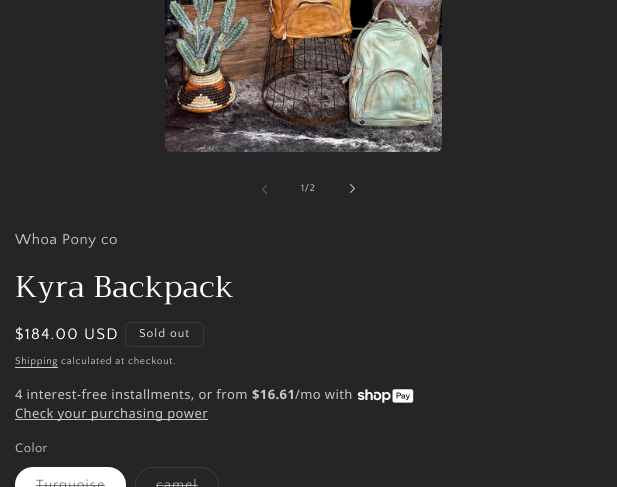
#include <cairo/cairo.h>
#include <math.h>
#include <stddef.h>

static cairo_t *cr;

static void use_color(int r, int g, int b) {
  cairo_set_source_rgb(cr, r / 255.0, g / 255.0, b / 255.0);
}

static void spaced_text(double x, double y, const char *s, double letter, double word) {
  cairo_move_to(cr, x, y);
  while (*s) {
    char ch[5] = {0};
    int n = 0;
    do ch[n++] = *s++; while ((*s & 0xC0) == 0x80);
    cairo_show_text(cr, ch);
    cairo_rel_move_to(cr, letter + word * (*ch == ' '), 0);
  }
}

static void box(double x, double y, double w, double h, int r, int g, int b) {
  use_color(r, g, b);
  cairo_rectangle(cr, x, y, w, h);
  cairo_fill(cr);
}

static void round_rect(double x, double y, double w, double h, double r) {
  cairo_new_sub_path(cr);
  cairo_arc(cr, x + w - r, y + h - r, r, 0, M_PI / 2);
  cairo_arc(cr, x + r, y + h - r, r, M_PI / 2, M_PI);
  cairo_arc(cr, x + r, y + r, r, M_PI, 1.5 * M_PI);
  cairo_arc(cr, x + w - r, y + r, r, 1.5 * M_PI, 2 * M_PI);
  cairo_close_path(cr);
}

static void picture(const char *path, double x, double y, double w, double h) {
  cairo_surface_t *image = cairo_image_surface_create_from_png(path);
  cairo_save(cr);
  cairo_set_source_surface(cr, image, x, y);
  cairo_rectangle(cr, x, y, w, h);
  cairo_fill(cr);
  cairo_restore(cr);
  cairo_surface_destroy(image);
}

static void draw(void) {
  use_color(37, 37, 37);
  cairo_paint(cr);
  picture("img_01.png", 165, 0, 277, 152);
  picture("img_02.png", 262, 185, 5, 9);
  picture("img_03.png", 350, 184, 5, 9);
  round_rect(125.5, 322.5, 78, 24, 5.5);
  use_color(57, 57, 57);
  cairo_set_line_width(cr, 1);
  cairo_stroke(cr);
  box(15, 367, 43, 1, 209, 206, 206);
  picture("img_04.png", 357, 389, 57, 14);
  box(15, 419, 193, 1, 201, 201, 201);
  use_color(255, 255, 255);
  round_rect(15, 467, 111, 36, 18);
  cairo_fill(cr);
  round_rect(15.5, 467.5, 110, 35, 17.5);
  cairo_set_source_rgba(cr, 1, 1, 1, 0.1);
  cairo_stroke(cr);
  round_rect(135.5, 467.5, 83, 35, 17.5);
  use_color(59, 59, 59);
  cairo_stroke(cr);
  cairo_select_font_face(cr, "Quattrocento Sans", CAIRO_FONT_SLANT_NORMAL, CAIRO_FONT_WEIGHT_NORMAL);
  cairo_set_font_size(cr, 10);
  use_color(201, 201, 201);
  spaced_text(301, 191, "1/2", 0.7, 0);
  cairo_set_font_size(cr, 15);
  spaced_text(15, 244, "Whoa Pony co", 0.6, 0);
  cairo_select_font_face(cr, "Trirong", CAIRO_FONT_SLANT_NORMAL, CAIRO_FONT_WEIGHT_NORMAL);
  cairo_set_font_size(cr, 30);
  use_color(255, 255, 255);
  spaced_text(15, 297, "Kyra Backpack", 0.6, 0);
  cairo_select_font_face(cr, "Quattrocento Sans", CAIRO_FONT_SLANT_NORMAL, CAIRO_FONT_WEIGHT_NORMAL);
  cairo_set_font_size(cr, 16);
  spaced_text(15, 339, "$184.00 USD", 1.25, 0);
  cairo_set_font_size(cr, 12);
  use_color(239, 236, 236);
  spaced_text(139, 337, "Sold out", 1, 0);
  cairo_set_font_size(cr, 10);
  use_color(209, 206, 206);
  spaced_text(15, 364, "Shipping", 0.7, 0);
  use_color(201, 201, 201);
  spaced_text(61, 364, "calculated at checkout.", 0.7, 0);
  cairo_select_font_face(cr, "Noto Sans", CAIRO_FONT_SLANT_NORMAL, CAIRO_FONT_WEIGHT_NORMAL);
  cairo_set_font_size(cr, 13);
  spaced_text(15, 399, "4 interest-free installments, or from", 0.4, 0);
  cairo_select_font_face(cr, "Noto Sans", CAIRO_FONT_SLANT_NORMAL, CAIRO_FONT_WEIGHT_BOLD);
  spaced_text(252, 399, "$16.61", 0.4, 0);
  cairo_select_font_face(cr, "Noto Sans", CAIRO_FONT_SLANT_NORMAL, CAIRO_FONT_WEIGHT_NORMAL);
  spaced_text(295, 399, "/mo with", 0.4, 0);
  spaced_text(15, 418, "Check your purchasing power", 0.4, 0);
  cairo_select_font_face(cr, "Quattrocento Sans", CAIRO_FONT_SLANT_NORMAL, CAIRO_FONT_WEIGHT_NORMAL);
  spaced_text(15, 452, "Color", 0.4, 0);
  cairo_set_font_size(cr, 14);
  use_color(124, 124, 124);
  spaced_text(36, 489, "Turquoise", 1, 0);
  cairo_set_source_rgba(cr, 0.145, 0.145, 0.145, 0.6);
  cairo_rectangle(cr, 36, 485, 69, 1);
  cairo_fill(cr);
  use_color(168, 168, 168);
  spaced_text(156, 489, "camel", 1, 0);
  cairo_set_source_rgba(cr, 1, 1, 1, 0.6);
  cairo_rectangle(cr, 156, 485, 42, 1);
  cairo_fill(cr);
}

int main(void) {
  cairo_surface_t *surface = cairo_image_surface_create(CAIRO_FORMAT_RGB24, 617, 487);
  cr = cairo_create(surface);
  cairo_font_options_t *options = cairo_font_options_create();
  cairo_font_options_set_hint_metrics(options, CAIRO_HINT_METRICS_OFF);
  cairo_font_options_set_hint_style(options, CAIRO_HINT_STYLE_NONE);
  cairo_set_font_options(cr, options);
  cairo_set_miter_limit(cr, 4);
  draw();
  cairo_surface_write_to_png(surface, "out.png");
  cairo_font_options_destroy(options);
  cairo_destroy(cr);
  cairo_surface_destroy(surface);
  return 0;
}
